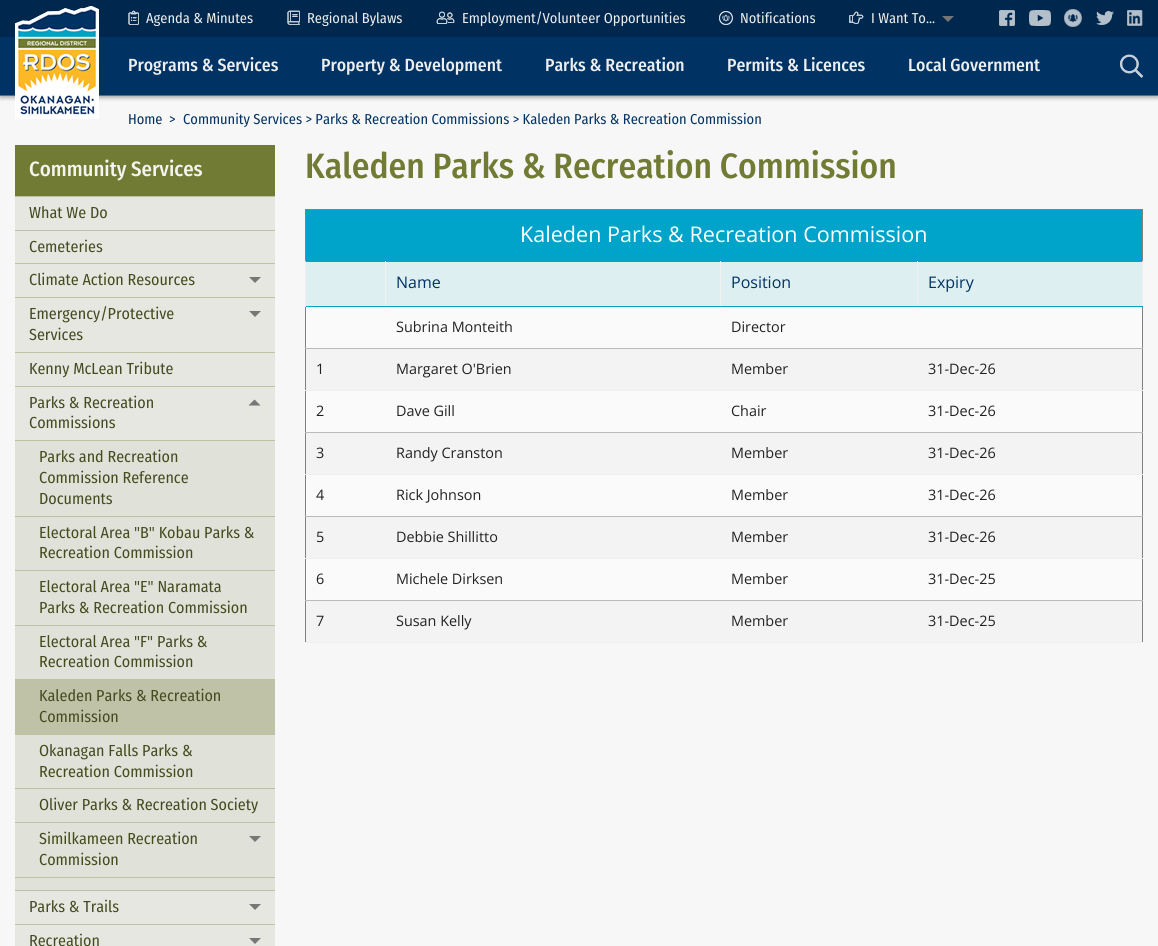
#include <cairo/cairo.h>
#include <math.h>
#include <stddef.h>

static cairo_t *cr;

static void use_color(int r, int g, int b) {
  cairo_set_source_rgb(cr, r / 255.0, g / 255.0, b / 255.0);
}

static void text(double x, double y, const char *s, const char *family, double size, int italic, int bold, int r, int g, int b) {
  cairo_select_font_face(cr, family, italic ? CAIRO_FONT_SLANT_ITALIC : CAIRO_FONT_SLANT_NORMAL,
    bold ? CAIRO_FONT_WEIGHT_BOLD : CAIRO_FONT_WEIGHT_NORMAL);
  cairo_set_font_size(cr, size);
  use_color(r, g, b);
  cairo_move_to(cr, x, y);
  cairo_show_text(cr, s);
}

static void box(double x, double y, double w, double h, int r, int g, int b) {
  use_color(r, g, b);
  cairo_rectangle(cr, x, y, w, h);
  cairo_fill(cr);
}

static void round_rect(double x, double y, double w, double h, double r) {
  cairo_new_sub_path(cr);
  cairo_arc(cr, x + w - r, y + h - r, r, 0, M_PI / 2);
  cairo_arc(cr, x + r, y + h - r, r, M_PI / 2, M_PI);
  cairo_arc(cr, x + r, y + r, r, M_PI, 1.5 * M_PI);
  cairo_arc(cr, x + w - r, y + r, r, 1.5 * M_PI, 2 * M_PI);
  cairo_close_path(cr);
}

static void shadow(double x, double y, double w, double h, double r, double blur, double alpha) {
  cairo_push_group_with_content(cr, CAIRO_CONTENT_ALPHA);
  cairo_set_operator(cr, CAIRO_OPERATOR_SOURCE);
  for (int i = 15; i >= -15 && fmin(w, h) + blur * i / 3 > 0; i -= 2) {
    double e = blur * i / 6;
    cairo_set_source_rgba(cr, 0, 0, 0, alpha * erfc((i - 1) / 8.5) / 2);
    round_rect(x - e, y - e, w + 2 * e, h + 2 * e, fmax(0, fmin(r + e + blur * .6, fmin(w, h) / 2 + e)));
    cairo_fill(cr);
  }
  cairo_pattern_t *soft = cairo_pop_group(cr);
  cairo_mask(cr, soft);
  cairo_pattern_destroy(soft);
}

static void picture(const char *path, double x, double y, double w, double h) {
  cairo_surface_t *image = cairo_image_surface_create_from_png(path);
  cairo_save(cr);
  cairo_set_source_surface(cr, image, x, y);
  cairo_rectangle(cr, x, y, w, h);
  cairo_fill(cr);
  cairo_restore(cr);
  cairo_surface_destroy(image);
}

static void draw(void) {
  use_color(0, 40, 79);
  cairo_paint(cr);
  box(0, 96, 1158, 850, 247, 247, 247);
  use_color(0, 0, 0);
  shadow(0, 39, 1158, 59, 0, 2, 0.3);
  box(0, 37, 1158, 58, 0, 50, 99);
  box(0, 95, 1158, 1, 77, 112, 146);
  picture("img_01.png", 15, 6, 84, 113);
  picture("img_02.png", 128, 10, 11, 15);
  picture("img_03.png", 287, 10, 13, 15);
  picture("img_04.png", 436, 11, 19, 13);
  picture("img_05.png", 719, 11, 14, 14);
  picture("img_06.png", 849, 11, 15, 13);
  use_color(118, 118, 118);
  cairo_new_path(cr);
  cairo_move_to(cr, 942, 16);
  cairo_line_to(cr, 954, 16);
  cairo_line_to(cr, 948, 22);
  cairo_close_path(cr);
  cairo_fill(cr);
  picture("img_07.png", 999, 10, 16, 16);
  picture("img_08.png", 1029, 10, 22, 16);
  picture("img_09.png", 1064, 9, 18, 18);
  picture("img_10.png", 1096, 11, 18, 14);
  picture("img_11.png", 1127, 10, 16, 16);
  picture("img_12.png", 1120, 54, 23, 24);
  box(15, 197, 260, 749, 230, 231, 225);
  box(15, 145, 260, 51, 114, 123, 52);
  box(15, 196, 260, 1, 190, 194, 165);
  box(15, 230, 260, 1, 190, 194, 165);
  box(15, 263, 260, 1, 190, 194, 165);
  use_color(119, 119, 119);
  cairo_new_path(cr);
  cairo_move_to(cr, 249, 277);
  cairo_line_to(cr, 261, 277);
  cairo_line_to(cr, 255, 283);
  cairo_close_path(cr);
  cairo_fill(cr);
  box(15, 297, 260, 1, 190, 194, 165);
  use_color(119, 119, 119);
  cairo_new_path(cr);
  cairo_move_to(cr, 249, 311);
  cairo_line_to(cr, 261, 311);
  cairo_line_to(cr, 255, 317);
  cairo_close_path(cr);
  cairo_fill(cr);
  box(15, 352, 260, 1, 190, 194, 165);
  box(15, 386, 260, 1, 190, 194, 165);
  use_color(119, 119, 119);
  cairo_new_path(cr);
  cairo_move_to(cr, 248.5, 405.5);
  cairo_line_to(cr, 260.5, 405.5);
  cairo_line_to(cr, 254.5, 399.5);
  cairo_close_path(cr);
  cairo_fill(cr);
  box(15, 441, 260, 449, 224, 225, 216);
  box(15, 440, 260, 1, 190, 194, 165);
  box(15, 516, 260, 1, 190, 194, 165);
  box(15, 570, 260, 1, 190, 194, 165);
  box(15, 625, 260, 1, 190, 194, 165);
  box(15, 680, 260, 54, 191, 194, 167);
  box(15, 679, 260, 1, 190, 194, 165);
  box(15, 734, 260, 1, 190, 194, 165);
  box(15, 788, 260, 1, 190, 194, 165);
  box(15, 822, 260, 1, 190, 194, 165);
  use_color(119, 119, 119);
  cairo_new_path(cr);
  cairo_move_to(cr, 249, 836);
  cairo_line_to(cr, 261, 836);
  cairo_line_to(cr, 255, 842);
  cairo_close_path(cr);
  cairo_fill(cr);
  box(15, 877, 260, 1, 190, 194, 165);
  box(15, 890, 260, 1, 190, 194, 165);
  use_color(119, 119, 119);
  cairo_new_path(cr);
  cairo_move_to(cr, 249, 904);
  cairo_line_to(cr, 261, 904);
  cairo_line_to(cr, 255, 910);
  cairo_close_path(cr);
  cairo_fill(cr);
  box(15, 924, 260, 1, 190, 194, 165);
  use_color(119, 119, 119);
  cairo_new_path(cr);
  cairo_move_to(cr, 249, 938);
  cairo_line_to(cr, 261, 938);
  cairo_line_to(cr, 255, 944);
  cairo_close_path(cr);
  cairo_fill(cr);
  box(305, 209, 838, 1, 128, 128, 128);
  box(1142, 209, 1, 434, 128, 128, 128);
  box(305, 209, 1, 434, 128, 128, 128);
  box(306, 210, 836, 51, 0, 163, 201);
  box(306, 262, 79, 44, 222, 239, 242);
  box(305, 261, 838, 1, 0, 163, 201);
  box(1142, 261, 1, 46, 241, 241, 241);
  box(917, 306, 226, 1, 0, 163, 201);
  box(917, 261, 1, 46, 241, 241, 241);
  box(720, 306, 198, 1, 0, 163, 201);
  box(720, 261, 1, 46, 241, 241, 241);
  box(385, 306, 336, 1, 0, 163, 201);
  box(385, 261, 1, 46, 241, 241, 241);
  box(305, 306, 81, 1, 0, 163, 201);
  box(305, 261, 1, 46, 241, 241, 241);
  box(386, 262, 334, 44, 222, 239, 242);
  box(721, 262, 196, 44, 222, 239, 242);
  box(918, 262, 224, 44, 222, 239, 242);
  box(306, 307, 836, 293, 250, 250, 250);
  box(305, 348, 838, 1, 187, 187, 187);
  box(306, 349, 836, 41, 243, 243, 243);
  box(305, 390, 838, 1, 238, 238, 238);
  box(305, 432, 838, 1, 187, 187, 187);
  box(306, 433, 836, 41, 243, 243, 243);
  box(305, 474, 838, 1, 238, 238, 238);
  box(305, 516, 838, 1, 187, 187, 187);
  box(306, 517, 836, 41, 243, 243, 243);
  box(305, 558, 838, 1, 238, 238, 238);
  box(305, 600, 838, 1, 187, 187, 187);
  box(306, 601, 836, 41, 243, 243, 243);
  box(305, 642, 838, 1, 238, 238, 238);
  text(146, 23, "Agenda & Minutes", "Fira Sans Condensed", 14.4, 0, 0, 238, 238, 238);
  text(307, 23, "Regional Bylaws", "Fira Sans Condensed", 14.4, 0, 0, 238, 238, 238);
  text(462, 23, "Employment/Volunteer Opportunities", "Fira Sans Condensed", 14.4, 0, 0, 238, 238, 238);
  text(740, 23, "Notifications", "Fira Sans Condensed", 14.4, 0, 0, 238, 238, 238);
  text(871, 23, "I Want To...", "Fira Sans Condensed", 14.4, 0, 0, 238, 238, 238);
  text(128, 71, "Programs & Services", "Fira Sans Condensed Medium", 17.6, 0, 0, 238, 238, 238);
  text(321, 71, "Property & Development", "Fira Sans Condensed Medium", 17.6, 0, 0, 238, 238, 238);
  text(545, 71, "Parks & Recreation", "Fira Sans Condensed Medium", 17.6, 0, 0, 238, 238, 238);
  text(727, 71, "Permits & Licences", "Fira Sans Condensed Medium", 17.6, 0, 0, 238, 238, 238);
  text(908, 71, "Local Government", "Fira Sans Condensed Medium", 17.6, 0, 0, 238, 238, 238);
  text(128, 124, "Home", "Fira Sans Condensed", 14.4, 0, 0, 0, 50, 99);
  text(169, 124, ">", "Fira Sans Condensed", 14.4, 0, 0, 0, 50, 99);
  text(183, 124, "Community Services > Parks & Recreation Commissions > Kaleden Parks & Recreation Commission", "Fira Sans Condensed", 14.4, 0, 0, 0, 50, 99);
  text(29, 176, "Community Services", "Fira Sans Condensed Medium", 20.75, 0, 0, 244, 244, 240);
  text(29, 218, "What We Do", "Fira Sans Condensed", 16, 0, 0, 69, 75, 31);
  text(29, 252, "Cemeteries", "Fira Sans Condensed", 16, 0, 0, 69, 75, 31);
  text(29, 285, "Climate Action Resources", "Fira Sans Condensed", 16, 0, 0, 69, 75, 31);
  text(29, 319, "Emergency/Protective", "Fira Sans Condensed", 16, 0, 0, 69, 75, 31);
  text(29, 340, "Services", "Fira Sans Condensed", 16, 0, 0, 69, 75, 31);
  text(29, 374, "Kenny McLean Tribute", "Fira Sans Condensed", 16, 0, 0, 69, 75, 31);
  text(29, 408, "Parks & Recreation", "Fira Sans Condensed", 16, 0, 0, 69, 75, 31);
  text(29, 428, "Commissions", "Fira Sans Condensed", 16, 0, 0, 69, 75, 31);
  text(39, 462, "Parks and Recreation", "Fira Sans Condensed", 16, 0, 0, 69, 75, 31);
  text(39, 483, "Commission Reference", "Fira Sans Condensed", 16, 0, 0, 69, 75, 31);
  text(39, 504, "Documents", "Fira Sans Condensed", 16, 0, 0, 69, 75, 31);
  text(39, 538, "Electoral Area \"B\" Kobau Parks &", "Fira Sans Condensed", 16, 0, 0, 69, 75, 31);
  text(39, 558, "Recreation Commission", "Fira Sans Condensed", 16, 0, 0, 69, 75, 31);
  text(39, 592, "Electoral Area \"E\" Naramata", "Fira Sans Condensed", 16, 0, 0, 69, 75, 31);
  text(39, 613, "Parks & Recreation Commission", "Fira Sans Condensed", 16, 0, 0, 69, 75, 31);
  text(39, 647, "Electoral Area \"F\" Parks &", "Fira Sans Condensed", 16, 0, 0, 69, 75, 31);
  text(39, 667, "Recreation Commission", "Fira Sans Condensed", 16, 0, 0, 69, 75, 31);
  text(39, 701, "Kaleden Parks & Recreation", "Fira Sans Condensed", 16, 0, 0, 69, 75, 31);
  text(39, 722, "Commission", "Fira Sans Condensed", 16, 0, 0, 69, 75, 31);
  text(39, 756, "Okanagan Falls Parks &", "Fira Sans Condensed", 16, 0, 0, 69, 75, 31);
  text(39, 777, "Recreation Commission", "Fira Sans Condensed", 16, 0, 0, 69, 75, 31);
  text(39, 810, "Oliver Parks & Recreation Society", "Fira Sans Condensed", 16, 0, 0, 69, 75, 31);
  text(39, 844, "Similkameen Recreation", "Fira Sans Condensed", 16, 0, 0, 69, 75, 31);
  text(39, 865, "Commission", "Fira Sans Condensed", 16, 0, 0, 69, 75, 31);
  text(29, 912, "Parks & Trails", "Fira Sans Condensed", 16, 0, 0, 69, 75, 31);
  text(29, 946, "Recreation", "Fira Sans Condensed", 16, 0, 0, 69, 75, 31);
  text(305, 178, "Kaleden Parks & Recreation Commission", "Fira Sans Condensed Medium", 35.25, 0, 0, 114, 123, 52);
  text(520, 242, "Kaleden Parks & Recreation Commission", "Open Sans", 21.6, 0, 0, 255, 255, 255);
  text(396, 288, "Name", "Open Sans", 16, 0, 0, 0, 50, 99);
  text(731, 288, "Position", "Open Sans", 16, 0, 0, 0, 50, 99);
  text(928, 288, "Expiry", "Open Sans", 16, 0, 0, 0, 50, 99);
  text(396, 332, "Subrina Monteith", "Open Sans", 14.4, 0, 0, 34, 34, 34);
  text(731, 332, "Director", "Open Sans", 14.4, 0, 0, 34, 34, 34);
  text(316, 374, "1", "Open Sans", 14.4, 0, 0, 34, 34, 34);
  text(396, 374, "Margaret O'Brien", "Open Sans", 14.4, 0, 0, 34, 34, 34);
  text(731, 374, "Member", "Open Sans", 14.4, 0, 0, 34, 34, 34);
  text(928, 374, "31-Dec-26", "Open Sans", 14.4, 0, 0, 34, 34, 34);
  text(316, 416, "2", "Open Sans", 14.4, 0, 0, 34, 34, 34);
  text(396, 416, "Dave Gill", "Open Sans", 14.4, 0, 0, 34, 34, 34);
  text(731, 416, "Chair", "Open Sans", 14.4, 0, 0, 34, 34, 34);
  text(928, 416, "31-Dec-26", "Open Sans", 14.4, 0, 0, 34, 34, 34);
  text(316, 458, "3", "Open Sans", 14.4, 0, 0, 34, 34, 34);
  text(396, 458, "Randy Cranston", "Open Sans", 14.4, 0, 0, 34, 34, 34);
  text(731, 458, "Member", "Open Sans", 14.4, 0, 0, 34, 34, 34);
  text(928, 458, "31-Dec-26", "Open Sans", 14.4, 0, 0, 34, 34, 34);
  text(316, 500, "4", "Open Sans", 14.4, 0, 0, 34, 34, 34);
  text(396, 500, "Rick Johnson", "Open Sans", 14.4, 0, 0, 34, 34, 34);
  text(731, 500, "Member", "Open Sans", 14.4, 0, 0, 34, 34, 34);
  text(928, 500, "31-Dec-26", "Open Sans", 14.4, 0, 0, 34, 34, 34);
  text(316, 542, "5", "Open Sans", 14.4, 0, 0, 34, 34, 34);
  text(396, 542, "Debbie Shillitto", "Open Sans", 14.4, 0, 0, 34, 34, 34);
  text(731, 542, "Member", "Open Sans", 14.4, 0, 0, 34, 34, 34);
  text(928, 542, "31-Dec-26", "Open Sans", 14.4, 0, 0, 34, 34, 34);
  text(316, 584, "6", "Open Sans", 14.4, 0, 0, 34, 34, 34);
  text(396, 584, "Michele Dirksen", "Open Sans", 14.4, 0, 0, 34, 34, 34);
  text(731, 584, "Member", "Open Sans", 14.4, 0, 0, 34, 34, 34);
  text(928, 584, "31-Dec-25", "Open Sans", 14.4, 0, 0, 34, 34, 34);
  text(316, 626, "7", "Open Sans", 14.4, 0, 0, 34, 34, 34);
  text(396, 626, "Susan Kelly", "Open Sans", 14.4, 0, 0, 34, 34, 34);
  text(731, 626, "Member", "Open Sans", 14.4, 0, 0, 34, 34, 34);
  text(928, 626, "31-Dec-25", "Open Sans", 14.4, 0, 0, 34, 34, 34);
}

int main(void) {
  cairo_surface_t *surface = cairo_image_surface_create(CAIRO_FORMAT_RGB24, 1158, 946);
  cr = cairo_create(surface);
  cairo_font_options_t *options = cairo_font_options_create();
  cairo_font_options_set_hint_metrics(options, CAIRO_HINT_METRICS_OFF);
  cairo_font_options_set_hint_style(options, CAIRO_HINT_STYLE_NONE);
  cairo_set_font_options(cr, options);
  cairo_set_miter_limit(cr, 4);
  draw();
  cairo_surface_write_to_png(surface, "out.png");
  cairo_font_options_destroy(options);
  cairo_destroy(cr);
  cairo_surface_destroy(surface);
  return 0;
}
